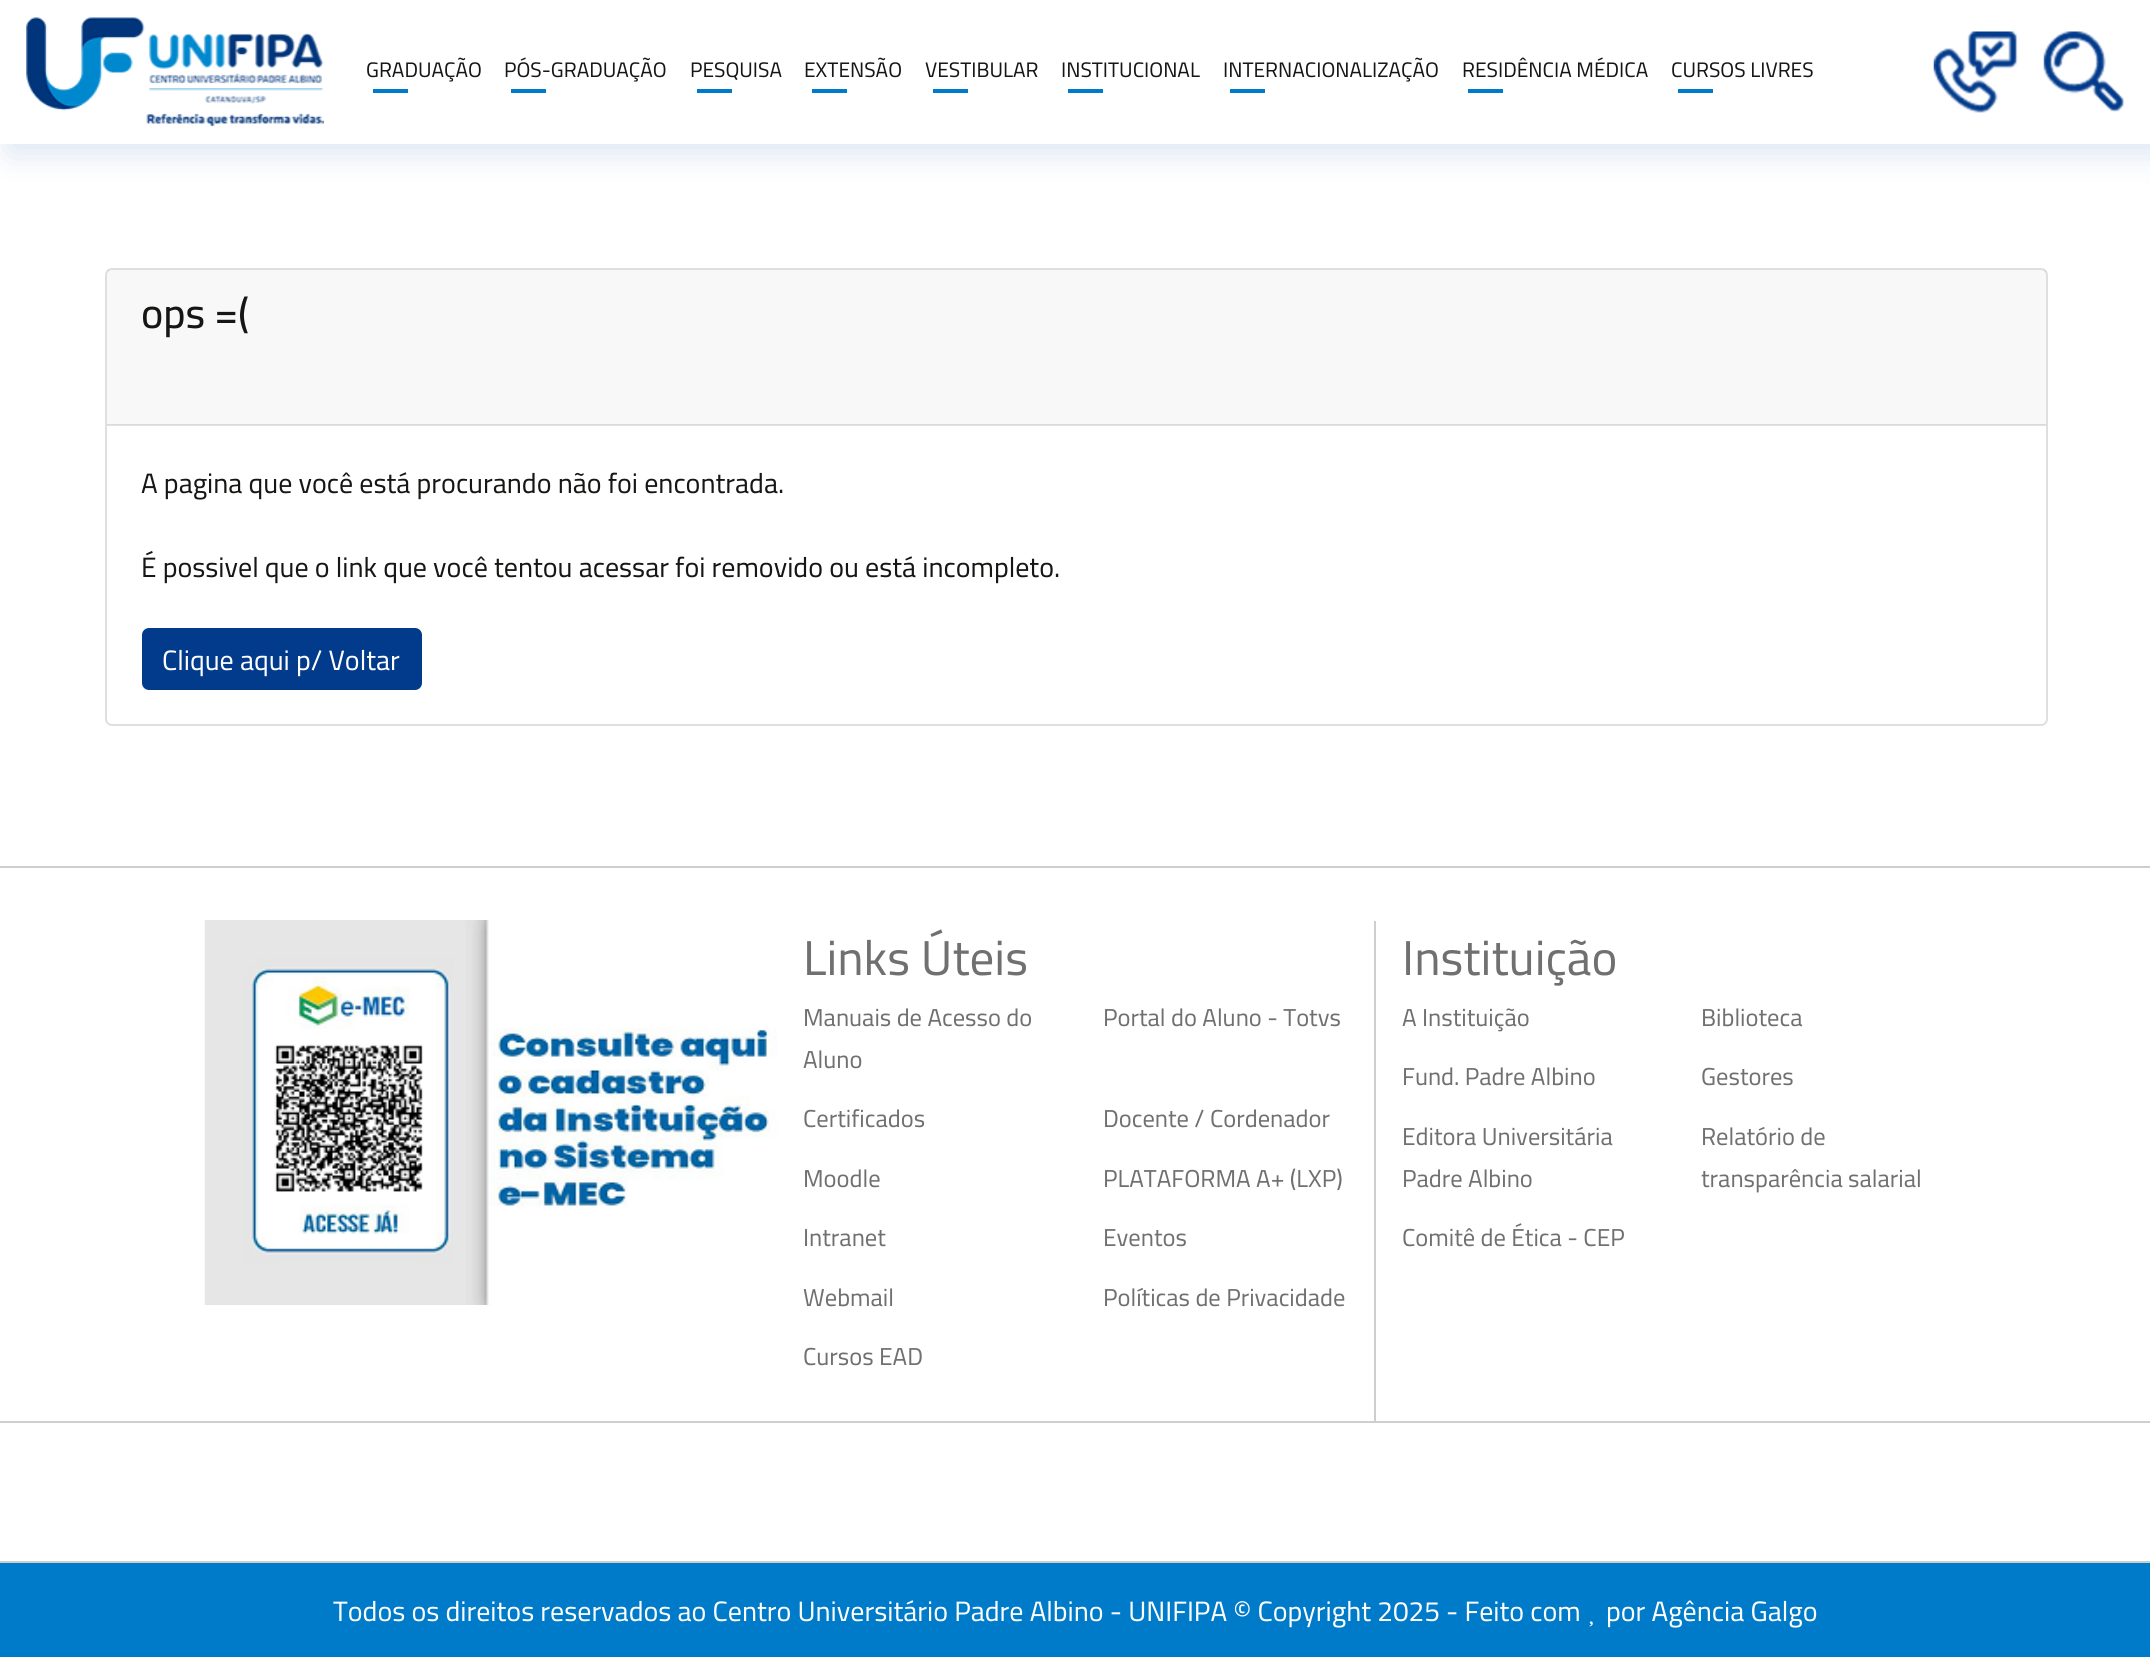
#include <cairo/cairo.h>
#include <math.h>
#include <stddef.h>

static cairo_t *cr;

static void use_color(int r, int g, int b) {
  cairo_set_source_rgb(cr, r / 255.0, g / 255.0, b / 255.0);
}

static void text(double x, double y, const char *s, const char *family, double size, int italic, int bold, int r, int g, int b) {
  cairo_select_font_face(cr, family, italic ? CAIRO_FONT_SLANT_ITALIC : CAIRO_FONT_SLANT_NORMAL,
    bold ? CAIRO_FONT_WEIGHT_BOLD : CAIRO_FONT_WEIGHT_NORMAL);
  cairo_set_font_size(cr, size);
  use_color(r, g, b);
  cairo_move_to(cr, x, y);
  cairo_show_text(cr, s);
}

static void box(double x, double y, double w, double h, int r, int g, int b) {
  use_color(r, g, b);
  cairo_rectangle(cr, x, y, w, h);
  cairo_fill(cr);
}

static void round_rect(double x, double y, double w, double h, double r) {
  cairo_new_sub_path(cr);
  cairo_arc(cr, x + w - r, y + h - r, r, 0, M_PI / 2);
  cairo_arc(cr, x + r, y + h - r, r, M_PI / 2, M_PI);
  cairo_arc(cr, x + r, y + r, r, M_PI, 1.5 * M_PI);
  cairo_arc(cr, x + w - r, y + r, r, 1.5 * M_PI, 2 * M_PI);
  cairo_close_path(cr);
}

static void shadow(double x, double y, double w, double h, double r, double blur, double alpha) {
  cairo_push_group_with_content(cr, CAIRO_CONTENT_ALPHA);
  cairo_set_operator(cr, CAIRO_OPERATOR_SOURCE);
  for (int i = 15; i >= -15 && fmin(w, h) + blur * i / 3 > 0; i -= 2) {
    double e = blur * i / 6;
    cairo_set_source_rgba(cr, 0, 0, 0, alpha * erfc((i - 1) / 8.5) / 2);
    round_rect(x - e, y - e, w + 2 * e, h + 2 * e, fmax(0, fmin(r + e + blur * .6, fmin(w, h) / 2 + e)));
    cairo_fill(cr);
  }
  cairo_pattern_t *soft = cairo_pop_group(cr);
  cairo_mask(cr, soft);
  cairo_pattern_destroy(soft);
}

static void picture(const char *path, double x, double y, double w, double h) {
  cairo_surface_t *image = cairo_image_surface_create_from_png(path);
  cairo_save(cr);
  cairo_set_source_surface(cr, image, x, y);
  cairo_rectangle(cr, x, y, w, h);
  cairo_fill(cr);
  cairo_restore(cr);
  cairo_surface_destroy(image);
}

static void draw(void) {
  use_color(255, 255, 255);
  cairo_paint(cr);
  use_color(19, 86, 174);
  shadow(9, 9, 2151, 143, 0, 17.5, 0.16);
  box(0, 0, 2150, 144, 255, 255, 255);
  picture("img_01.png", 26, 17, 298, 110);
  box(373, 89, 35, 4, 0, 123, 202);
  box(511, 89, 35, 4, 0, 123, 202);
  box(697, 89, 35, 4, 0, 123, 202);
  box(812, 89, 35, 4, 0, 123, 202);
  box(933, 89, 35, 4, 0, 123, 202);
  box(1068, 89, 35, 4, 0, 123, 202);
  box(1230, 89, 35, 4, 0, 123, 202);
  box(1468, 89, 35, 4, 0, 123, 202);
  box(1678, 89, 35, 4, 0, 123, 202);
  picture("img_02.png", 1933, 31, 85, 82);
  picture("img_03.png", 2043, 31, 82, 81);
  round_rect(106, 269, 1941, 456, 6);
  use_color(223, 223, 223);
  cairo_stroke(cr);
  cairo_set_source_rgba(cr, 0, 0, 0, 0.03);
  cairo_rectangle(cr, 107, 270, 1939, 155);
  cairo_fill(cr);
  cairo_set_source_rgba(cr, 0, 0, 0, 0.12);
  cairo_rectangle(cr, 107, 424, 1939, 2);
  cairo_fill(cr);
  use_color(2, 59, 139);
  round_rect(142, 628, 280, 62, 7);
  cairo_fill(cr);
  box(0, 866, 2150, 2, 206, 206, 206);
  picture("img_04.png", 204, 920, 573, 385);
  box(1374, 921, 2, 500, 206, 206, 206);
  box(0, 1421, 2150, 2, 206, 206, 206);
  box(0, 1563, 2150, 94, 0, 123, 202);
  box(0, 1561, 2150, 2, 206, 206, 206);
  picture("img_05.png", 1589, 1621, 4, 6);
  text(366, 77, "GRADUAÇÃO", "Cairo", 21, 0, 0, 22, 22, 21);
  text(504, 77, "PÓS-GRADUAÇÃO", "Cairo", 21, 0, 0, 22, 22, 21);
  text(690, 77, "PESQUISA", "Cairo", 21, 0, 0, 22, 22, 21);
  text(804, 77, "EXTENSÃO", "Cairo", 21, 0, 0, 22, 22, 21);
  text(925, 77, "VESTIBULAR", "Cairo", 21, 0, 0, 22, 22, 21);
  text(1061, 77, "INSTITUCIONAL", "Cairo", 21, 0, 0, 22, 22, 21);
  text(1223, 77, "INTERNACIONALIZAÇÃO", "Cairo", 21, 0, 0, 22, 22, 21);
  text(1462, 77, "RESIDÊNCIA MÉDICA", "Cairo", 21, 0, 0, 22, 22, 21);
  text(1671, 77, "CURSOS LIVRES", "Cairo", 21, 0, 0, 22, 22, 21);
  text(141, 328, "ops =(", "Cairo Medium", 42, 0, 0, 22, 22, 21);
  text(141, 493, "A pagina que você está procurando não foi encontrada.", "Cairo", 28, 0, 0, 22, 22, 21);
  text(141, 577, "É possivel que o link que você tentou acessar foi removido ou está incompleto.", "Cairo", 28, 0, 0, 22, 22, 21);
  text(162, 670, "Clique aqui p/ Voltar", "Cairo", 28, 0, 0, 255, 255, 255);
  text(803, 975, "Links Úteis", "Cairo", 49, 0, 0, 112, 112, 112);
  text(803, 1026, "Manuais de Acesso do", "Cairo", 24.5, 0, 0, 112, 112, 112);
  text(803, 1068, "Aluno", "Cairo", 24.5, 0, 0, 112, 112, 112);
  text(1103, 1026, "Portal do Aluno - Totvs", "Cairo", 24.5, 0, 0, 112, 112, 112);
  text(803, 1127, "Certificados", "Cairo", 24.5, 0, 0, 112, 112, 112);
  text(1103, 1127, "Docente / Cordenador", "Cairo", 24.5, 0, 0, 112, 112, 112);
  text(803, 1187, "Moodle", "Cairo", 24.5, 0, 0, 112, 112, 112);
  text(1103, 1187, "PLATAFORMA A+ (LXP)", "Cairo", 24.5, 0, 0, 112, 112, 112);
  text(803, 1246, "Intranet", "Cairo", 24.5, 0, 0, 112, 112, 112);
  text(1103, 1246, "Eventos", "Cairo", 24.5, 0, 0, 112, 112, 112);
  text(803, 1306, "Webmail", "Cairo", 24.5, 0, 0, 112, 112, 112);
  text(1103, 1306, "Políticas de Privacidade", "Cairo", 24.5, 0, 0, 112, 112, 112);
  text(803, 1365, "Cursos EAD", "Cairo", 24.5, 0, 0, 112, 112, 112);
  text(1402, 975, "Instituição", "Cairo", 49, 0, 0, 112, 112, 112);
  text(1402, 1026, "A Instituição", "Cairo", 24.5, 0, 0, 112, 112, 112);
  text(1701, 1026, "Biblioteca", "Cairo", 24.5, 0, 0, 112, 112, 112);
  text(1402, 1085, "Fund. Padre Albino", "Cairo", 24.5, 0, 0, 112, 112, 112);
  text(1701, 1085, "Gestores", "Cairo", 24.5, 0, 0, 112, 112, 112);
  text(1402, 1145, "Editora Universitária", "Cairo", 24.5, 0, 0, 112, 112, 112);
  text(1402, 1187, "Padre Albino", "Cairo", 24.5, 0, 0, 112, 112, 112);
  text(1701, 1145, "Relatório de", "Cairo", 24.5, 0, 0, 112, 112, 112);
  text(1701, 1187, "transparência salarial", "Cairo", 24.5, 0, 0, 112, 112, 112);
  text(1402, 1246, "Comitê de Ética - CEP", "Cairo", 24.5, 0, 0, 112, 112, 112);
  text(333, 1621, "Todos os direitos reservados ao Centro Universitário Padre Albino - UNIFIPA © Copyright 2025 - Feito com", "Cairo", 28, 0, 0, 255, 255, 255);
  text(1606, 1621, "por Agência Galgo", "Cairo", 28, 0, 0, 255, 255, 255);
}

int main(void) {
  cairo_surface_t *surface = cairo_image_surface_create(CAIRO_FORMAT_RGB24, 2150, 1657);
  cr = cairo_create(surface);
  cairo_font_options_t *options = cairo_font_options_create();
  cairo_font_options_set_hint_metrics(options, CAIRO_HINT_METRICS_OFF);
  cairo_font_options_set_hint_style(options, CAIRO_HINT_STYLE_NONE);
  cairo_set_font_options(cr, options);
  cairo_set_miter_limit(cr, 4);
  draw();
  cairo_surface_write_to_png(surface, "out.png");
  cairo_font_options_destroy(options);
  cairo_destroy(cr);
  cairo_surface_destroy(surface);
  return 0;
}
